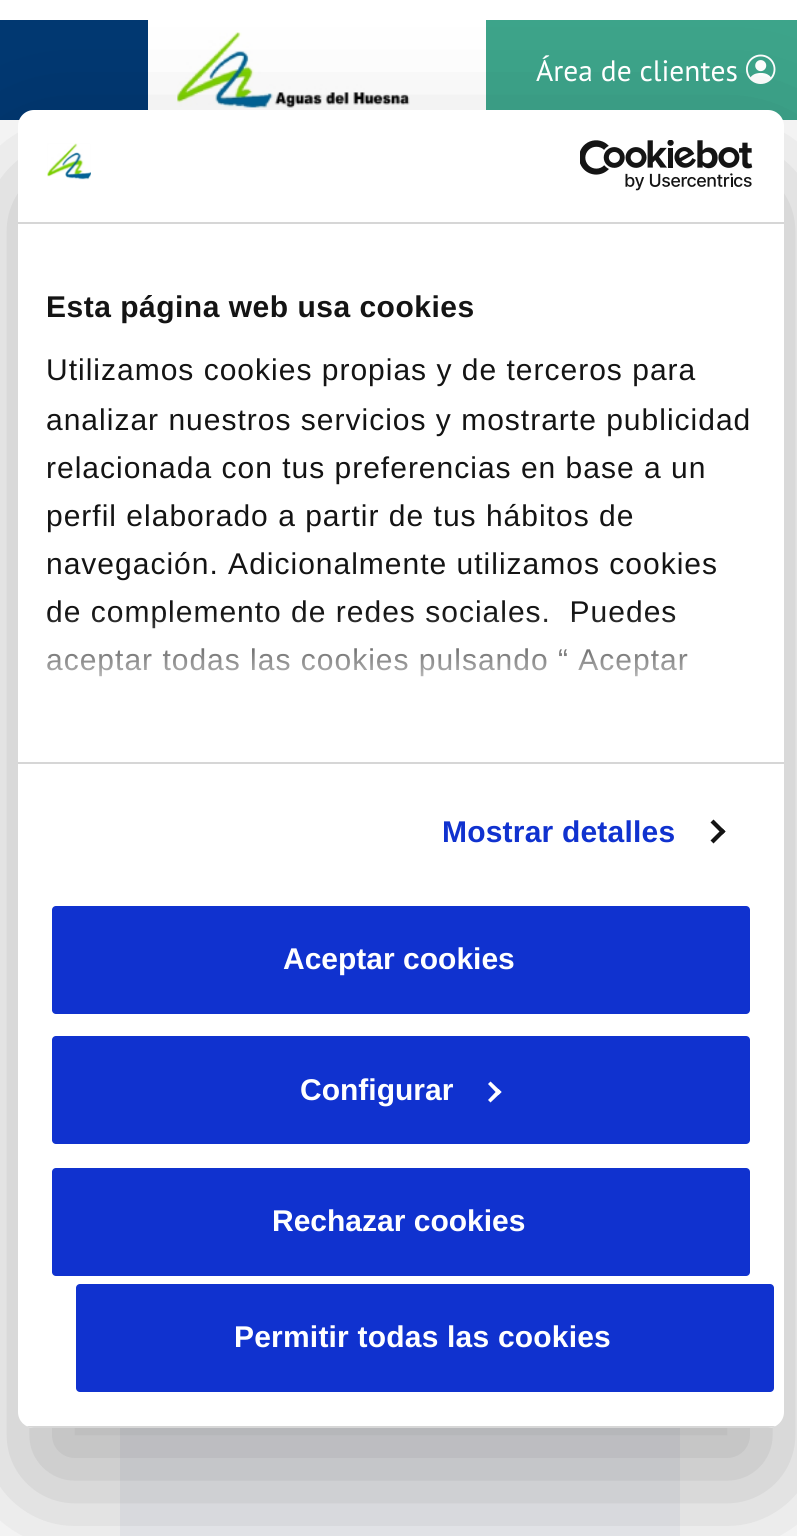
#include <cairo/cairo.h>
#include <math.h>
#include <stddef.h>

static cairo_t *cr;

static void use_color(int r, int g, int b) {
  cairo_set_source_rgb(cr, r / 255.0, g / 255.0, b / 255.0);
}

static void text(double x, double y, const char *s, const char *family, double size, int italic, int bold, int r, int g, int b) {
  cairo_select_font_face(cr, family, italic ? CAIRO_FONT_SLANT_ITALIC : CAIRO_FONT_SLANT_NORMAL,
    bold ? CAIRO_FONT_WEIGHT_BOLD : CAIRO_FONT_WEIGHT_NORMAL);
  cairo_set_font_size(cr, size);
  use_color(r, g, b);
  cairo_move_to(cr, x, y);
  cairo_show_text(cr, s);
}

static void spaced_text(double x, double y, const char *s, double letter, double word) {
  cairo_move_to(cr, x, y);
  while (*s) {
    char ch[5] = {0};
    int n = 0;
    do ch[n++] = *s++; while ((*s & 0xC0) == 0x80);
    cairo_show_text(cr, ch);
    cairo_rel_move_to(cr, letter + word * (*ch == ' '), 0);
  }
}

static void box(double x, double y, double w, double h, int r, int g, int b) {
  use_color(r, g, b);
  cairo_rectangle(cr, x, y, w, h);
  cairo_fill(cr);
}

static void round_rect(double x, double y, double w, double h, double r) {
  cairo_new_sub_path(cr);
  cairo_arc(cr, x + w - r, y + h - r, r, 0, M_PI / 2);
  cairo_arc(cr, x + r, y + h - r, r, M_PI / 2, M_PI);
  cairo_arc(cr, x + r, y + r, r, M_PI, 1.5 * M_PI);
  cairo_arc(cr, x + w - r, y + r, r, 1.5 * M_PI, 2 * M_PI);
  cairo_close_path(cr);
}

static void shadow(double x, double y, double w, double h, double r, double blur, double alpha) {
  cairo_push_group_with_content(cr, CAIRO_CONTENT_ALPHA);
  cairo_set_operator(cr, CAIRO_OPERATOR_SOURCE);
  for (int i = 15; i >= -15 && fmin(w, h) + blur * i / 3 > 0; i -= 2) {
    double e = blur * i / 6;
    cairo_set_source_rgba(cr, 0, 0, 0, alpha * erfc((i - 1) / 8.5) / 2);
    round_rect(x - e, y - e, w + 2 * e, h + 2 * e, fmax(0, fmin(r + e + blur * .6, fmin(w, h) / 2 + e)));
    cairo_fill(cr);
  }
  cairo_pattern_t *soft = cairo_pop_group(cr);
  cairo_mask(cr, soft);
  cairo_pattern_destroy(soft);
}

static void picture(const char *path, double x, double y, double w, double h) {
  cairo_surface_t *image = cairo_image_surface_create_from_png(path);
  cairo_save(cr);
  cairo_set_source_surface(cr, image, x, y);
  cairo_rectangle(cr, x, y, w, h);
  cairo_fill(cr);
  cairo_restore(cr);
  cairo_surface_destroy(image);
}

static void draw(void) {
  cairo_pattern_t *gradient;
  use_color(255, 255, 255);
  cairo_paint(cr);
  box(0, 20, 148, 100, 1, 56, 113);
  picture("img_01.png", 177, 32, 233, 76);
  box(486, 20, 311, 100, 61, 164, 138);
  picture("img_02.png", 746, 54, 30, 30);
  box(120, 1428, 560, 108, 243, 244, 248);
  use_color(0, 0, 0);
  shadow(18, 174, 766, 1318, 16, 68, 0.3);
  use_color(255, 255, 255);
  round_rect(18, 110, 766, 1318, 16);
  cairo_fill(cr);
  box(18, 222, 766, 2, 214, 214, 214);
  picture("img_03.png", 47, 143, 44, 37);
  picture("img_04.png", 580, 140, 173, 51);
  box(18, 762, 766, 2, 214, 214, 214);
  use_color(20, 20, 20);
  cairo_new_path(cr);
  cairo_move_to(cr, 713.5, 819.5);
  cairo_line_to(cr, 725.5, 831.5);
  cairo_line_to(cr, 722.5, 834.5);
  cairo_line_to(cr, 710.5, 822.5);
  cairo_close_path(cr);
  cairo_fill(cr);
  cairo_new_path(cr);
  cairo_move_to(cr, 722.5, 828.5);
  cairo_line_to(cr, 725.5, 831.5);
  cairo_line_to(cr, 713.5, 843.5);
  cairo_line_to(cr, 710.5, 840.5);
  cairo_close_path(cr);
  cairo_fill(cr);
  cairo_save(cr);
  round_rect(18, 110, 766, 1318, 16);
  cairo_clip(cr);
  box(18, 1426, 766, 2, 214, 214, 214);
  cairo_restore(cr);
  use_color(16, 50, 207);
  round_rect(50, 904, 702, 112, 6);
  cairo_fill_preserve(cr);
  use_color(255, 255, 255);
  cairo_set_line_width(cr, 4);
  cairo_stroke(cr);
  use_color(16, 50, 207);
  round_rect(50, 1034, 702, 112, 6);
  cairo_fill_preserve(cr);
  use_color(255, 255, 255);
  cairo_stroke(cr);
  cairo_new_path(cr);
  cairo_move_to(cr, 490.5, 1081.5);
  cairo_line_to(cr, 501.5, 1092);
  cairo_line_to(cr, 498.5, 1095);
  cairo_line_to(cr, 488, 1084);
  cairo_close_path(cr);
  cairo_fill(cr);
  cairo_new_path(cr);
  cairo_move_to(cr, 498.5, 1089);
  cairo_line_to(cr, 501.5, 1092);
  cairo_line_to(cr, 490.5, 1102.5);
  cairo_line_to(cr, 488, 1100);
  cairo_close_path(cr);
  cairo_fill(cr);
  use_color(16, 50, 207);
  round_rect(50, 1166, 702, 112, 6);
  cairo_fill_preserve(cr);
  use_color(255, 255, 255);
  cairo_stroke(cr);
  use_color(16, 50, 207);
  round_rect(74, 1282, 702, 112, 6);
  cairo_fill_preserve(cr);
  use_color(255, 255, 255);
  cairo_stroke(cr);
  text(536, 81, "Área de clientes", "PT Sans", 29.5, 0, 0, 255, 255, 255);
  cairo_select_font_face(cr, "Liberation Sans", CAIRO_FONT_SLANT_NORMAL, CAIRO_FONT_WEIGHT_BOLD);
  cairo_set_font_size(cr, 30);
  use_color(20, 20, 20);
  spaced_text(46, 317, "Esta página web usa cookies", 0.5, 0);
  cairo_select_font_face(cr, "Liberation Sans", CAIRO_FONT_SLANT_NORMAL, CAIRO_FONT_WEIGHT_NORMAL);
  spaced_text(46, 380, "Utilizamos cookies propias y de terceros para", 1, 0);
  spaced_text(46, 430, "analizar nuestros servicios y mostrarte publicidad", 1, 0);
  spaced_text(46, 478, "relacionada con tus preferencias en base a un", 1, 0);
  spaced_text(46, 526, "perfil elaborado a partir de tus hábitos de", 1, 0);
  spaced_text(46, 574, "navegación. Adicionalmente utilizamos cookies", 1, 0);
  spaced_text(46, 622, "de complemento de redes sociales.  Puedes", 1, 0);
  spaced_text(46, 670, "aceptar todas las cookies pulsando “ Aceptar", 1, 0);
  gradient = cairo_pattern_create_linear(387, 762, 387, 612);
  cairo_pattern_add_color_stop_rgba(gradient, 0, 1, 1, 1, 1);
  cairo_pattern_add_color_stop_rgba(gradient, 0.5, 1, 1, 1, 0.8);
  cairo_pattern_add_color_stop_rgba(gradient, 1, 1, 1, 1, 0);
  cairo_set_source(cr, gradient);
  cairo_pattern_destroy(gradient);
  cairo_rectangle(cr, 47, 614, 641, 63);
  cairo_fill(cr);
  cairo_select_font_face(cr, "Liberation Sans", CAIRO_FONT_SLANT_NORMAL, CAIRO_FONT_WEIGHT_BOLD);
  use_color(16, 50, 207);
  spaced_text(442, 842, "Mostrar detalles", 0.2, 0);
  text(283, 969, "Aceptar cookies", "Liberation Sans", 30, 0, 1, 255, 255, 255);
  text(300, 1100, "Configurar", "Liberation Sans", 30, 0, 1, 255, 255, 255);
  text(272, 1231, "Rechazar cookies", "Liberation Sans", 30, 0, 1, 255, 255, 255);
  spaced_text(234, 1347, "Permitir todas las cookies", 0.2, 0);
}

int main(void) {
  cairo_surface_t *surface = cairo_image_surface_create(CAIRO_FORMAT_RGB24, 797, 1536);
  cr = cairo_create(surface);
  cairo_font_options_t *options = cairo_font_options_create();
  cairo_font_options_set_hint_metrics(options, CAIRO_HINT_METRICS_OFF);
  cairo_font_options_set_hint_style(options, CAIRO_HINT_STYLE_NONE);
  cairo_set_font_options(cr, options);
  cairo_set_miter_limit(cr, 4);
  draw();
  cairo_surface_write_to_png(surface, "out.png");
  cairo_font_options_destroy(options);
  cairo_destroy(cr);
  cairo_surface_destroy(surface);
  return 0;
}
